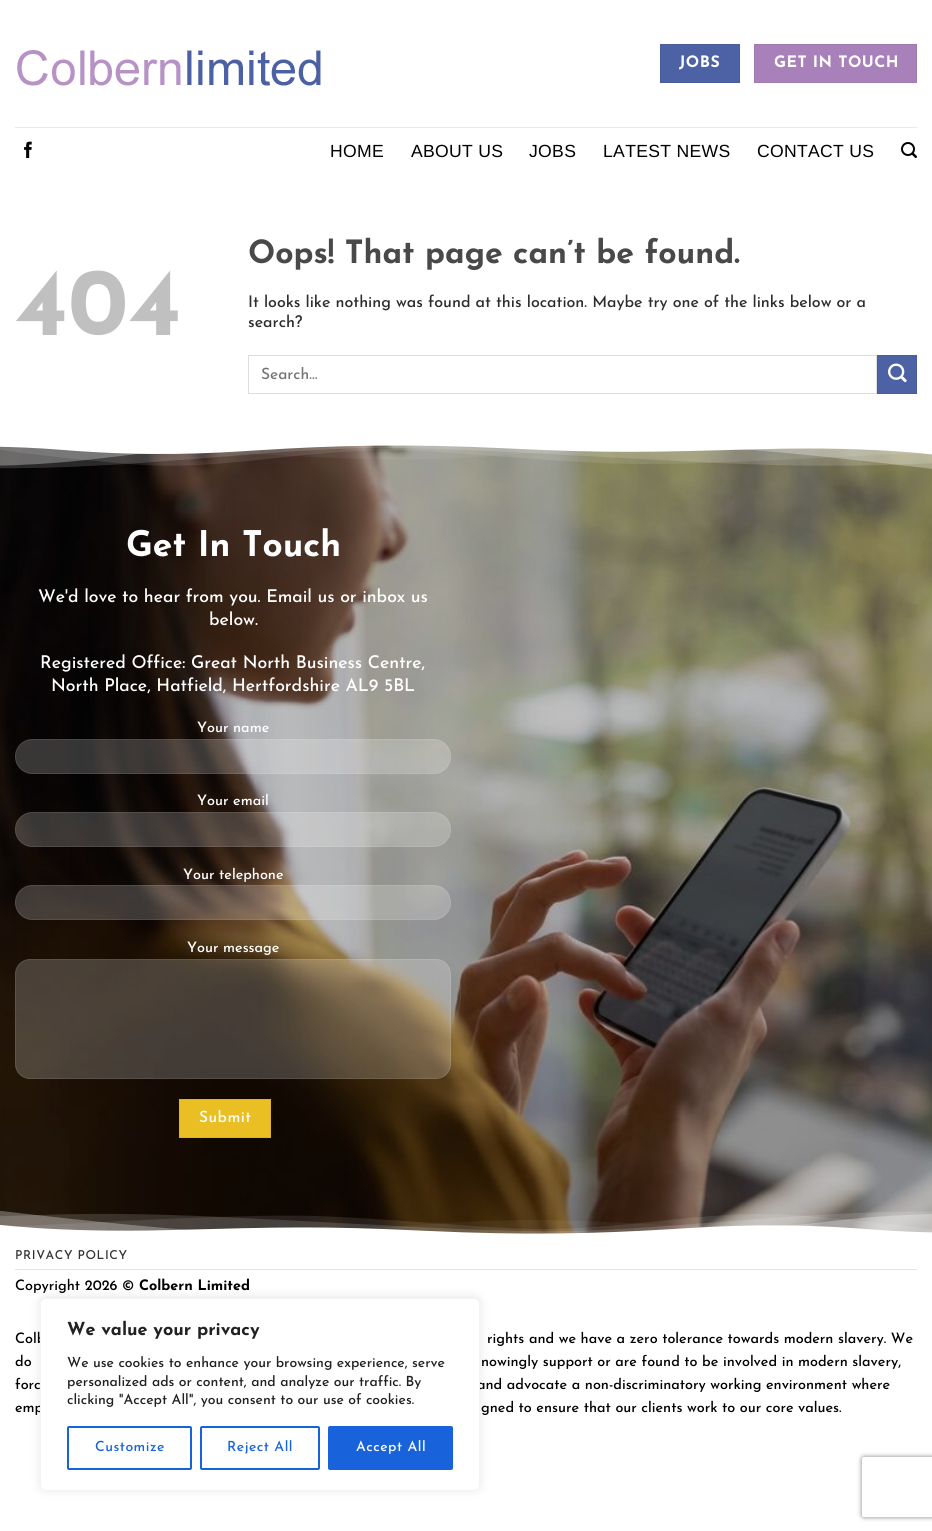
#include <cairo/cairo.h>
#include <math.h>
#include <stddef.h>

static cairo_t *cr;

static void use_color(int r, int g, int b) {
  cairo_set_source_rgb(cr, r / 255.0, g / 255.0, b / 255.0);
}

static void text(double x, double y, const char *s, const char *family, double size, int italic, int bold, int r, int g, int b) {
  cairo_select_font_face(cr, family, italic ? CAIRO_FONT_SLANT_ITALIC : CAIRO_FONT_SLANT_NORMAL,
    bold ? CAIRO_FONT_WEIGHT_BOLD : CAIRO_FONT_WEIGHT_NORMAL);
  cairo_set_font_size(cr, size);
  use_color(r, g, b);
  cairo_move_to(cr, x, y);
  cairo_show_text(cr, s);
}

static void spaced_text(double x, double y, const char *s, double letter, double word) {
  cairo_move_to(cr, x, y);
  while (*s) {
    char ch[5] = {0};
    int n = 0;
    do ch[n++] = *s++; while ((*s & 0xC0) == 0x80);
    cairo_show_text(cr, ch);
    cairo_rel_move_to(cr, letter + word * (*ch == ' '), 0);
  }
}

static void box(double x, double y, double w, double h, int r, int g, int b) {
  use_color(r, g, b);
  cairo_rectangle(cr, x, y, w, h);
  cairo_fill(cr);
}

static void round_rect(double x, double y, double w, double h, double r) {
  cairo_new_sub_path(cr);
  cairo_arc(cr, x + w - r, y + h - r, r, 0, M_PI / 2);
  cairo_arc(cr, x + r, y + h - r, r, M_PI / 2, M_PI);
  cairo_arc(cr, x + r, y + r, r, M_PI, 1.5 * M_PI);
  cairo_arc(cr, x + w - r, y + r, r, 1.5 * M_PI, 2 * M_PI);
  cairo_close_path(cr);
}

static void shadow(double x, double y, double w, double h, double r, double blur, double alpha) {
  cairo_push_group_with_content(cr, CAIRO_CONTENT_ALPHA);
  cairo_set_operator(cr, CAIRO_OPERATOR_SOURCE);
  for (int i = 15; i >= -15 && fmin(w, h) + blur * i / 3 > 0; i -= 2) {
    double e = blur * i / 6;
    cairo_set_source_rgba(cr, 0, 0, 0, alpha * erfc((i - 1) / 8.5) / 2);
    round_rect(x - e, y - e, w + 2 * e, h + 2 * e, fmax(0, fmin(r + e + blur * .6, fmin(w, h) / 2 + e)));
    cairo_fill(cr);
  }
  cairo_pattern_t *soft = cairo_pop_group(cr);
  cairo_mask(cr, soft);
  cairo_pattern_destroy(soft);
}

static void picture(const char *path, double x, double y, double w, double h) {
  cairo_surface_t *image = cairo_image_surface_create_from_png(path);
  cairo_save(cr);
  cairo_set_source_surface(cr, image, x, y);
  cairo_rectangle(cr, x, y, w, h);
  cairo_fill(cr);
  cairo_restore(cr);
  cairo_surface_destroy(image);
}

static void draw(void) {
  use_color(255, 255, 255);
  cairo_paint(cr);
  picture("img_01.png", 17, 50, 304, 36);
  use_color(77, 98, 165);
  cairo_rectangle(cr, 660.5, 44.5, 79, 38);
  cairo_fill_preserve(cr);
  use_color(73, 93, 157);
  cairo_set_line_width(cr, 1);
  cairo_stroke(cr);
  use_color(168, 129, 186);
  cairo_rectangle(cr, 754.5, 44.5, 162, 38);
  cairo_fill_preserve(cr);
  use_color(160, 123, 177);
  cairo_stroke(cr);
  box(15, 127, 902, 1, 234, 234, 234);
  picture("img_02.png", 24, 141, 8, 17);
  picture("img_03.png", 901, 142, 16, 16);
  cairo_rectangle(cr, 248.5, 355.5, 628, 38);
  use_color(221, 221, 221);
  cairo_stroke(cr);
  use_color(77, 98, 165);
  cairo_rectangle(cr, 877.5, 355.5, 39, 38);
  cairo_fill_preserve(cr);
  use_color(73, 93, 157);
  cairo_stroke(cr);
  picture("img_04.png", 888, 363, 19, 20);
  picture("img_05.png", 0, 445, 932, 789);
  picture("img_06.png", 0, 445, 932, 24);
  cairo_set_source_rgba(cr, 1, 1, 1, 0.2);
  round_rect(15, 739, 436, 35, 17.5);
  cairo_fill(cr);
  round_rect(15.5, 739.5, 435, 34, 17);
  cairo_set_source_rgba(cr, 1, 1, 1, 0.09);
  cairo_stroke(cr);
  cairo_set_source_rgba(cr, 1, 1, 1, 0.2);
  round_rect(15, 812, 436, 35, 17.5);
  cairo_fill(cr);
  round_rect(15.5, 812.5, 435, 34, 17);
  cairo_set_source_rgba(cr, 1, 1, 1, 0.09);
  cairo_stroke(cr);
  cairo_set_source_rgba(cr, 1, 1, 1, 0.2);
  round_rect(15, 885, 436, 35, 17.5);
  cairo_fill(cr);
  round_rect(15.5, 885.5, 435, 34, 17);
  cairo_set_source_rgba(cr, 1, 1, 1, 0.09);
  cairo_stroke(cr);
  cairo_set_source_rgba(cr, 1, 1, 1, 0.2);
  round_rect(15, 959, 436, 120, 15);
  cairo_fill(cr);
  round_rect(15.5, 959.5, 435, 119, 14.5);
  cairo_set_source_rgba(cr, 1, 1, 1, 0.09);
  cairo_stroke(cr);
  use_color(234, 191, 35);
  cairo_rectangle(cr, 179.5, 1099.5, 91, 38);
  cairo_fill_preserve(cr);
  use_color(222, 181, 33);
  cairo_stroke(cr);
  picture("img_07.png", 0, 1210, 932, 24);
  box(15, 1269, 902, 1, 228, 228, 228);
  use_color(172, 171, 171);
  shadow(40, 1297, 440, 193, 6, 5, 0.3);
  cairo_save(cr);
  cairo_set_fill_rule(cr, CAIRO_FILL_RULE_EVEN_ODD);
  cairo_new_path(cr);
  cairo_move_to(cr, 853, 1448);
  cairo_line_to(cr, 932, 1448);
  cairo_line_to(cr, 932, 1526);
  cairo_line_to(cr, 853, 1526);
  cairo_close_path(cr);
  cairo_move_to(cr, 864, 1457);
  cairo_line_to(cr, 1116, 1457);
  cairo_curve_to(cr, 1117, 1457, 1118, 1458, 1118, 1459);
  cairo_line_to(cr, 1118, 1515);
  cairo_curve_to(cr, 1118, 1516, 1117, 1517, 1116, 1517);
  cairo_line_to(cr, 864, 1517);
  cairo_curve_to(cr, 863, 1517, 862, 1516, 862, 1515);
  cairo_line_to(cr, 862, 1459);
  cairo_curve_to(cr, 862, 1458, 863, 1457, 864, 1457);
  cairo_close_path(cr);
  cairo_clip(cr);
  use_color(128, 128, 128);
  shadow(862, 1457, 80, 60, 2, 2.5, 1);
  cairo_restore(cr);
  cairo_select_font_face(cr, "Josefin Sans", CAIRO_FONT_SLANT_NORMAL, CAIRO_FONT_WEIGHT_BOLD);
  cairo_set_font_size(cr, 15.75);
  use_color(255, 255, 255);
  spaced_text(679, 67, "JOBS", 0.5, 0);
  spaced_text(774, 67, "GET IN TOUCH", 0.5, 0);
  cairo_select_font_face(cr, "Liberation Sans", CAIRO_FONT_SLANT_NORMAL, CAIRO_FONT_WEIGHT_NORMAL);
  cairo_set_font_size(cr, 17.6);
  use_color(0, 0, 0);
  spaced_text(330, 157, "HOME", 0.3, 0);
  spaced_text(411, 157, "ABOUT US", 0.3, 0);
  spaced_text(529, 157, "JOBS", 0.3, 0);
  spaced_text(603, 157, "LATEST NEWS", 0.3, 0);
  spaced_text(757, 157, "CONTACT US", 0.3, 0);
  text(15, 335, "404", "Josefin Sans", 96, 0, 1, 192, 192, 192);
  text(248, 263, "Oops! That page can’t be found.", "Josefin Sans", 32, 0, 1, 73, 73, 73);
  text(248, 307, "It looks like nothing was found at this location. Maybe try one of the links below or a", "Josefin Sans Medium", 16, 0, 0, 45, 45, 45);
  text(248, 327, "search?", "Josefin Sans Medium", 16, 0, 0, 45, 45, 45);
  text(261, 379, "Search…", "Josefin Sans Medium", 15.5, 0, 0, 117, 117, 117);
  text(126, 556, "Get In Touch", "Josefin Sans", 35.25, 0, 1, 255, 255, 255);
  text(38, 602, "We'd love to hear from you. Email us or inbox us", "Josefin Sans Medium", 17.6, 0, 0, 255, 255, 255);
  text(209, 625, "below.", "Josefin Sans Medium", 17.6, 0, 0, 255, 255, 255);
  text(40, 668, "Registered Office: Great North Business Centre,", "Josefin Sans Medium", 17.6, 0, 0, 255, 255, 255);
  text(51, 691, "North Place, Hatfield, Hertfordshire AL9 5BL", "Josefin Sans Medium", 17.6, 0, 0, 255, 255, 255);
  text(197, 732, "Your name", "Josefin Sans Medium", 14.4, 0, 0, 255, 255, 255);
  text(197, 805, "Your email", "Josefin Sans Medium", 14.4, 0, 0, 255, 255, 255);
  text(183, 879, "Your telephone", "Josefin Sans Medium", 14.4, 0, 0, 255, 255, 255);
  text(187, 952, "Your message", "Josefin Sans Medium", 14.4, 0, 0, 255, 255, 255);
  cairo_set_font_size(cr, 15.5);
  spaced_text(199, 1122, "Submit", 0.5, 0);
  cairo_set_font_size(cr, 12.25);
  use_color(51, 51, 51);
  spaced_text(15, 1259, "PRIVACY POLICY", 0.6, 0);
  text(15, 1290, "Copyright 2026 ©", "Josefin Sans Medium", 14.4, 0, 0, 0, 0, 0);
  text(139, 1290, "Colbern Limited", "Josefin Sans", 14.4, 0, 1, 0, 0, 0);
  text(15, 1343, "Colb", "Josefin Sans Medium", 14.4, 0, 0, 0, 0, 0);
  text(487, 1343, "rights and we have a zero tolerance towards modern slavery. We", "Josefin Sans Medium", 14.4, 0, 0, 0, 0, 0);
  text(15, 1366, "do", "Josefin Sans Medium", 14.4, 0, 0, 0, 0, 0);
  text(481, 1366, "nowingly support or are found to be involved in modern slavery,", "Josefin Sans Medium", 14.4, 0, 0, 0, 0, 0);
  text(15, 1389, "forc", "Josefin Sans Medium", 14.4, 0, 0, 0, 0, 0);
  text(477, 1389, "and advocate a non-discriminatory working environment where", "Josefin Sans Medium", 14.4, 0, 0, 0, 0, 0);
  text(15, 1412, "emp", "Josefin Sans Medium", 14.4, 0, 0, 0, 0, 0);
  text(481, 1412, "gned to ensure that our clients work to our core values.", "Josefin Sans Medium", 14.4, 0, 0, 0, 0, 0);
  use_color(255, 255, 255);
  round_rect(40.5, 1298.5, 439, 192, 5.5);
  cairo_fill_preserve(cr);
  use_color(244, 244, 244);
  cairo_stroke(cr);
  text(67, 1335, "We value your privacy", "Josefin Sans", 18, 0, 1, 33, 33, 33);
  text(67, 1367, "We use cookies to enhance your browsing experience, serve", "Josefin Sans Medium", 14, 0, 0, 33, 33, 33);
  text(67, 1386, "personalized ads or content, and analyze our traffic. By", "Josefin Sans Medium", 14, 0, 0, 33, 33, 33);
  text(67, 1404, "clicking \"Accept All\", you consent to our use of cookies.", "Josefin Sans Medium", 14, 0, 0, 33, 33, 33);
  round_rect(68, 1427, 123, 42, 1);
  use_color(24, 99, 220);
  cairo_set_line_width(cr, 2);
  cairo_stroke(cr);
  spaced_text(95, 1451, "Customize", 0.5, 0);
  round_rect(201, 1427, 118, 42, 1);
  cairo_stroke(cr);
  spaced_text(227, 1451, "Reject All", 0.5, 0);
  round_rect(329, 1427, 123, 42, 1);
  cairo_fill_preserve(cr);
  cairo_stroke(cr);
  use_color(255, 255, 255);
  spaced_text(356, 1451, "Accept All", 0.5, 0);
}

int main(void) {
  cairo_surface_t *surface = cairo_image_surface_create(CAIRO_FORMAT_RGB24, 932, 1531);
  cr = cairo_create(surface);
  cairo_font_options_t *options = cairo_font_options_create();
  cairo_font_options_set_hint_metrics(options, CAIRO_HINT_METRICS_OFF);
  cairo_font_options_set_hint_style(options, CAIRO_HINT_STYLE_NONE);
  cairo_set_font_options(cr, options);
  cairo_set_miter_limit(cr, 4);
  draw();
  cairo_surface_write_to_png(surface, "out.png");
  cairo_font_options_destroy(options);
  cairo_destroy(cr);
  cairo_surface_destroy(surface);
  return 0;
}
